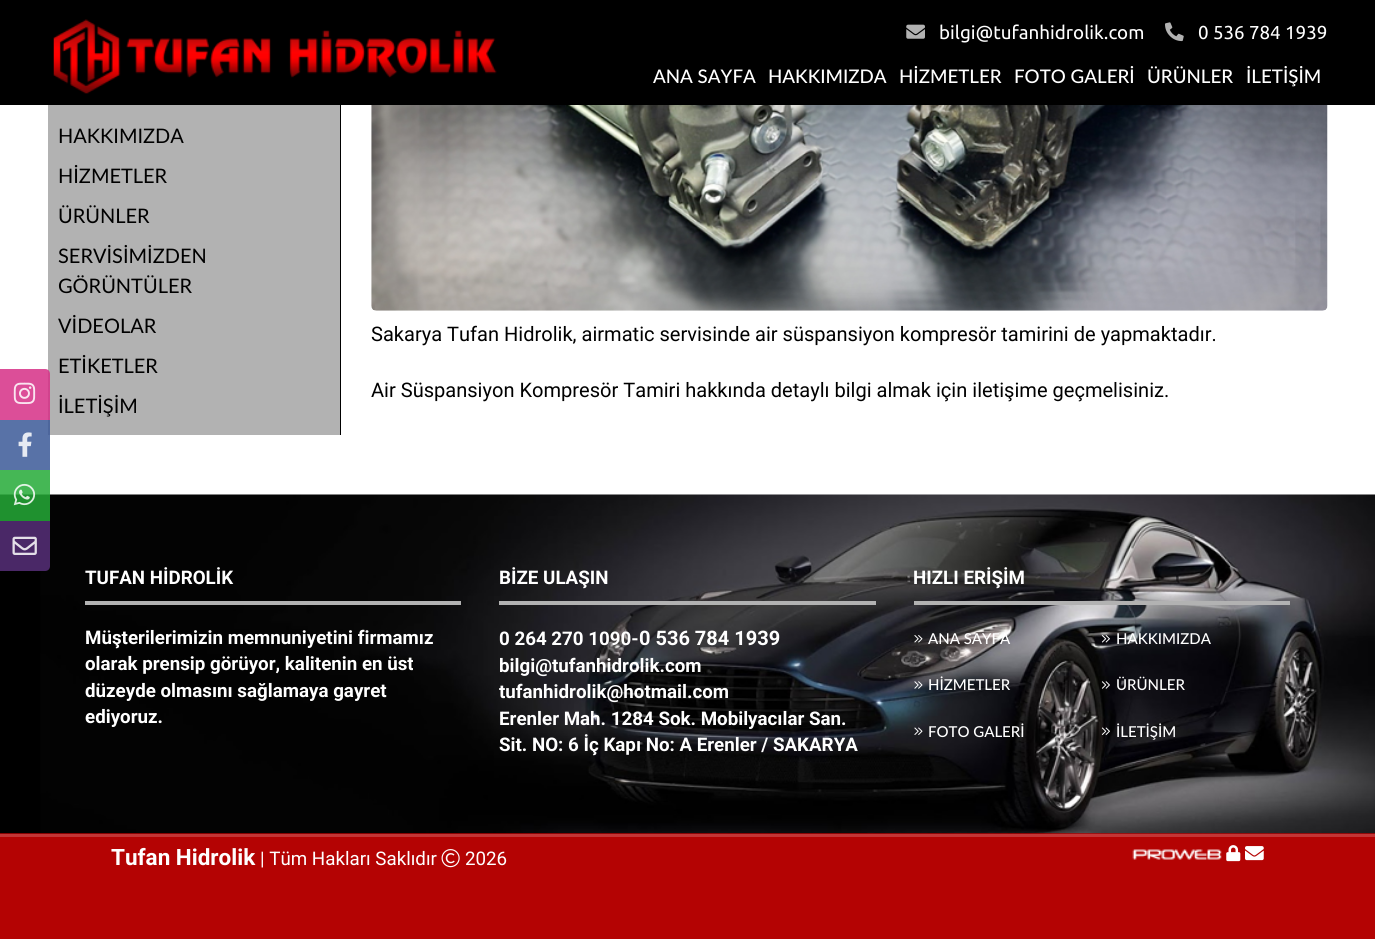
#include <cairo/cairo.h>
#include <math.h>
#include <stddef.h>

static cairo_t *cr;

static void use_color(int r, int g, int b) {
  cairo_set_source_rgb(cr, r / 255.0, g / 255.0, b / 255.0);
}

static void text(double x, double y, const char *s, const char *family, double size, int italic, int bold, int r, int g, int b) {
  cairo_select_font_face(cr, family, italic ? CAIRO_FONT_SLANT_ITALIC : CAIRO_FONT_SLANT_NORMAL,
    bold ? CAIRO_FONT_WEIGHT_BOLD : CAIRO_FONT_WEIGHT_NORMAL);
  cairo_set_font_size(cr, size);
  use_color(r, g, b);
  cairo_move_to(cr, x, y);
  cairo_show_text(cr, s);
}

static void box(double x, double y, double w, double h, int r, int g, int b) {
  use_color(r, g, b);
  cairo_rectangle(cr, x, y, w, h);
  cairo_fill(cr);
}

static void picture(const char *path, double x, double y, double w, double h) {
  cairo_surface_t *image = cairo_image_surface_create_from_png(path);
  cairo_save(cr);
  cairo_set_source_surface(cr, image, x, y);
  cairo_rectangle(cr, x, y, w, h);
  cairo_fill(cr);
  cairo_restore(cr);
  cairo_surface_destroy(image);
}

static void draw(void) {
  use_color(255, 255, 255);
  cairo_paint(cr);
  box(0, 420, 50, 50, 88, 114, 167);
  box(0, 0, 1375, 105, 0, 0, 0);
  picture("img_01.png", 53, 19, 444, 75);
  picture("img_02.png", 906, 24, 19, 15);
  picture("img_03.png", 1165, 22, 19, 20);
  box(48, 105, 292, 330, 178, 178, 178);
  box(48, 420, 2, 15, 77, 102, 156);
  box(340, 105, 1, 330, 0, 0, 0);
  picture("img_04.png", 371, 105, 957, 206);
  cairo_set_source_rgba(cr, 0.839, 0.188, 0.525, 0.85);
  cairo_new_path(cr);
  cairo_move_to(cr, 0, 369);
  cairo_line_to(cr, 45, 369);
  cairo_curve_to(cr, 48, 369, 50, 371, 50, 374);
  cairo_line_to(cr, 50, 420);
  cairo_line_to(cr, 0, 420);
  cairo_close_path(cr);
  cairo_fill(cr);
  picture("img_05.png", 13, 382, 23, 22);
  picture("img_06.png", 18, 432, 14, 25);
  box(0, 833, 1375, 106, 180, 3, 3);
  picture("img_09.png", 0, 494, 1375, 340);
  cairo_set_source_rgba(cr, 0.145, 0.667, 0.216, 0.85);
  cairo_rectangle(cr, 0, 470, 50, 51);
  cairo_fill(cr);
  picture("img_07.png", 13, 483, 23, 23);
  cairo_set_source_rgba(cr, 0.341, 0.184, 0.475, 0.85);
  cairo_new_path(cr);
  cairo_move_to(cr, 0, 521);
  cairo_line_to(cr, 50, 521);
  cairo_line_to(cr, 50, 566);
  cairo_curve_to(cr, 50, 569, 48, 571, 45, 571);
  cairo_line_to(cr, 0, 571);
  cairo_close_path(cr);
  cairo_fill(cr);
  picture("img_08.png", 12, 536, 25, 19);
  box(85, 601, 376, 4, 178, 178, 178);
  box(499, 601, 377, 4, 178, 178, 178);
  box(914, 601, 376, 4, 178, 178, 178);
  picture("img_10.png", 914, 635, 9, 8);
  picture("img_11.png", 1101, 635, 9, 8);
  picture("img_12.png", 914, 681, 9, 8);
  picture("img_13.png", 1101, 681, 9, 8);
  picture("img_14.png", 914, 727, 9, 8);
  picture("img_15.png", 1101, 727, 9, 8);
  box(0, 834, 1375, 3, 195, 53, 53);
  picture("img_16.png", 441, 849, 19, 19);
  picture("img_17.png", 1132, 849, 90, 11);
  picture("img_18.png", 1226, 845, 15, 17);
  picture("img_19.png", 1245, 846, 19, 15);
  text(939, 39, "bilgi@tufanhidrolik.com", "Ubuntu", 18.75, 0, 0, 255, 255, 255);
  text(1198, 39, "0 536 784 1939", "Ubuntu", 18.75, 0, 0, 255, 255, 255);
  text(653, 83, "ANA SAYFA", "Lato Medium", 18.75, 0, 0, 255, 255, 255);
  text(768, 83, "HAKKIMIZDA", "Lato Medium", 18.75, 0, 0, 255, 255, 255);
  text(899, 83, "HİZMETLER", "Lato Medium", 18.75, 0, 0, 255, 255, 255);
  text(1014, 83, "FOTO GALERİ", "Lato Medium", 18.75, 0, 0, 255, 255, 255);
  text(1147, 83, "ÜRÜNLER", "Lato Medium", 18.75, 0, 0, 255, 255, 255);
  text(1246, 83, "İLETİŞİM", "Lato Medium", 18.75, 0, 0, 255, 255, 255);
  text(58, 143, "HAKKIMIZDA", "Lato", 20, 0, 0, 0, 0, 0);
  text(58, 183, "HİZMETLER", "Lato", 20, 0, 0, 0, 0, 0);
  text(58, 223, "ÜRÜNLER", "Lato", 20, 0, 0, 0, 0, 0);
  text(58, 263, "SERVİSİMİZDEN", "Lato", 20, 0, 0, 0, 0, 0);
  text(58, 293, "GÖRÜNTÜLER", "Lato", 20, 0, 0, 0, 0, 0);
  text(58, 333, "VİDEOLAR", "Lato", 20, 0, 0, 0, 0, 0);
  text(58, 373, "ETİKETLER", "Lato", 20, 0, 0, 0, 0, 0);
  text(58, 413, "İLETİŞİM", "Lato", 20, 0, 0, 0, 0, 0);
  text(371, 341, "Sakarya Tufan Hidrolik, airmatic servisinde air süspansiyon kompresör tamirini de yapmaktadır.", "Roboto", 20.05, 0, 0, 0, 0, 0);
  text(371, 397, "Air Süspansiyon Kompresör Tamiri hakkında detaylı bilgi almak için iletişime geçmelisiniz.", "Roboto", 20.05, 0, 0, 0, 0, 0);
  text(85, 584, "TUFAN HİDROLİK", "Roboto", 18.75, 0, 1, 255, 255, 255);
  text(85, 644, "Müşterilerimizin memnuniyetini firmamız", "Roboto", 18.75, 0, 1, 255, 255, 255);
  text(85, 670, "olarak prensip görüyor, kalitenin en üst", "Roboto", 18.75, 0, 1, 255, 255, 255);
  text(85, 697, "düzeyde olmasını sağlamaya gayret", "Roboto", 18.75, 0, 1, 255, 255, 255);
  text(85, 723, "ediyoruz.", "Roboto", 18.75, 0, 1, 255, 255, 255);
  text(499, 584, "BİZE ULAŞIN", "Roboto", 18.75, 0, 1, 255, 255, 255);
  text(499, 645, "0 264 270 1090-", "Roboto", 18.75, 0, 1, 255, 255, 255);
  text(639, 645, "0 536 784 1939", "Roboto", 20, 0, 1, 255, 255, 255);
  text(499, 672, "bilgi@tufanhidrolik.com", "Roboto", 18.75, 0, 1, 255, 255, 255);
  text(499, 698, "tufanhidrolik@hotmail.com", "Roboto", 18.75, 0, 1, 255, 255, 255);
  text(499, 725, "Erenler Mah. 1284 Sok. Mobilyacılar San.", "Roboto", 18.75, 0, 1, 255, 255, 255);
  text(499, 751, "Sit. NO: 6 İç Kapı No: A Erenler / SAKARYA", "Roboto", 18.75, 0, 1, 255, 255, 255);
  text(913, 584, "HIZLI ERİŞİM", "Roboto", 18.75, 0, 1, 255, 255, 255);
  text(928, 644, "ANA SAYFA", "Lato Medium", 15, 0, 0, 255, 255, 255);
  text(1116, 644, "HAKKIMIZDA", "Lato Medium", 15, 0, 0, 255, 255, 255);
  text(928, 690, "HİZMETLER", "Lato Medium", 15, 0, 0, 255, 255, 255);
  text(1116, 690, "ÜRÜNLER", "Lato Medium", 15, 0, 0, 255, 255, 255);
  text(928, 737, "FOTO GALERİ", "Lato Medium", 15, 0, 0, 255, 255, 255);
  text(1116, 737, "İLETİŞİM", "Lato Medium", 15, 0, 0, 255, 255, 255);
  text(111, 865, "Tufan Hidrolik", "Roboto", 22.5, 0, 1, 255, 255, 255);
  text(260, 865, "| Tüm Hakları Saklıdır", "Roboto", 18.75, 0, 0, 255, 255, 255);
  text(465, 865, "2026", "Roboto", 18.75, 0, 0, 255, 255, 255);
}

int main(void) {
  cairo_surface_t *surface = cairo_image_surface_create(CAIRO_FORMAT_RGB24, 1375, 939);
  cr = cairo_create(surface);
  cairo_font_options_t *options = cairo_font_options_create();
  cairo_font_options_set_hint_metrics(options, CAIRO_HINT_METRICS_OFF);
  cairo_font_options_set_hint_style(options, CAIRO_HINT_STYLE_NONE);
  cairo_set_font_options(cr, options);
  cairo_set_miter_limit(cr, 4);
  draw();
  cairo_surface_write_to_png(surface, "out.png");
  cairo_font_options_destroy(options);
  cairo_destroy(cr);
  cairo_surface_destroy(surface);
  return 0;
}
